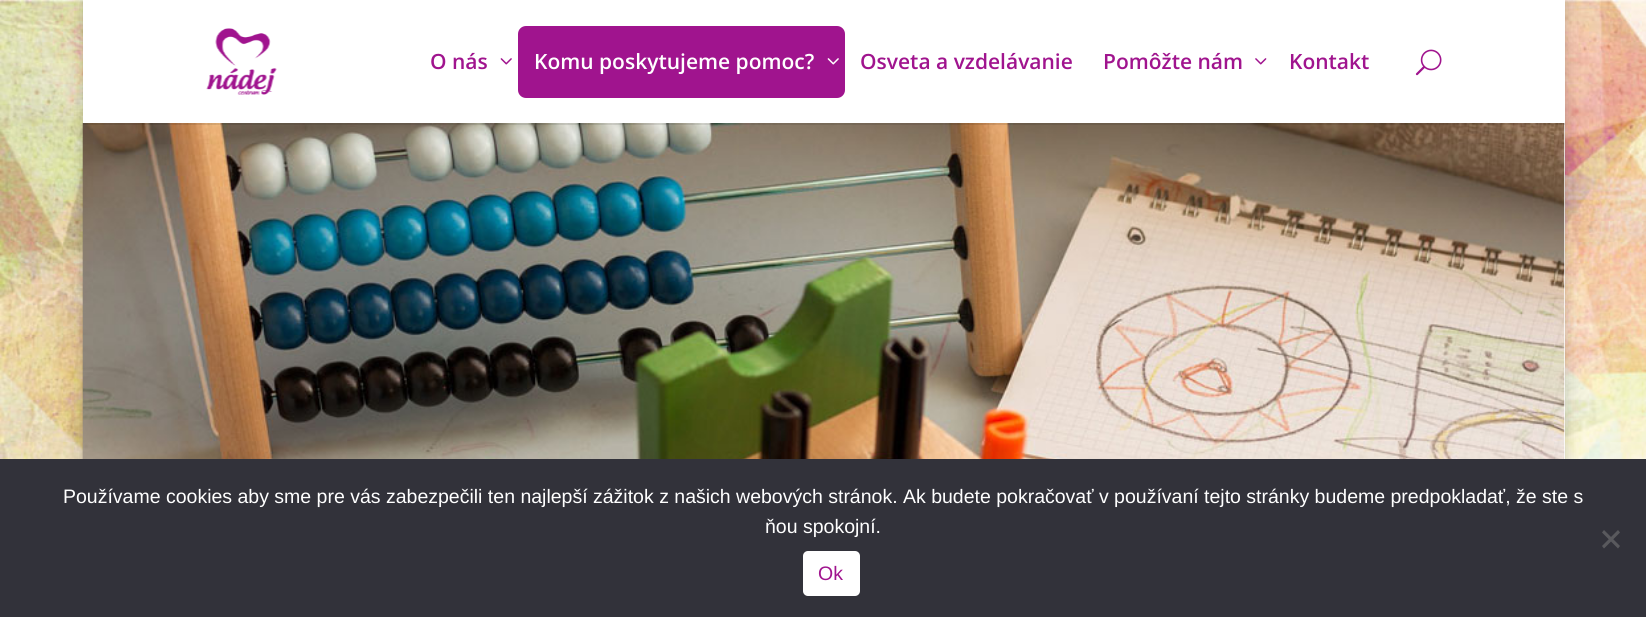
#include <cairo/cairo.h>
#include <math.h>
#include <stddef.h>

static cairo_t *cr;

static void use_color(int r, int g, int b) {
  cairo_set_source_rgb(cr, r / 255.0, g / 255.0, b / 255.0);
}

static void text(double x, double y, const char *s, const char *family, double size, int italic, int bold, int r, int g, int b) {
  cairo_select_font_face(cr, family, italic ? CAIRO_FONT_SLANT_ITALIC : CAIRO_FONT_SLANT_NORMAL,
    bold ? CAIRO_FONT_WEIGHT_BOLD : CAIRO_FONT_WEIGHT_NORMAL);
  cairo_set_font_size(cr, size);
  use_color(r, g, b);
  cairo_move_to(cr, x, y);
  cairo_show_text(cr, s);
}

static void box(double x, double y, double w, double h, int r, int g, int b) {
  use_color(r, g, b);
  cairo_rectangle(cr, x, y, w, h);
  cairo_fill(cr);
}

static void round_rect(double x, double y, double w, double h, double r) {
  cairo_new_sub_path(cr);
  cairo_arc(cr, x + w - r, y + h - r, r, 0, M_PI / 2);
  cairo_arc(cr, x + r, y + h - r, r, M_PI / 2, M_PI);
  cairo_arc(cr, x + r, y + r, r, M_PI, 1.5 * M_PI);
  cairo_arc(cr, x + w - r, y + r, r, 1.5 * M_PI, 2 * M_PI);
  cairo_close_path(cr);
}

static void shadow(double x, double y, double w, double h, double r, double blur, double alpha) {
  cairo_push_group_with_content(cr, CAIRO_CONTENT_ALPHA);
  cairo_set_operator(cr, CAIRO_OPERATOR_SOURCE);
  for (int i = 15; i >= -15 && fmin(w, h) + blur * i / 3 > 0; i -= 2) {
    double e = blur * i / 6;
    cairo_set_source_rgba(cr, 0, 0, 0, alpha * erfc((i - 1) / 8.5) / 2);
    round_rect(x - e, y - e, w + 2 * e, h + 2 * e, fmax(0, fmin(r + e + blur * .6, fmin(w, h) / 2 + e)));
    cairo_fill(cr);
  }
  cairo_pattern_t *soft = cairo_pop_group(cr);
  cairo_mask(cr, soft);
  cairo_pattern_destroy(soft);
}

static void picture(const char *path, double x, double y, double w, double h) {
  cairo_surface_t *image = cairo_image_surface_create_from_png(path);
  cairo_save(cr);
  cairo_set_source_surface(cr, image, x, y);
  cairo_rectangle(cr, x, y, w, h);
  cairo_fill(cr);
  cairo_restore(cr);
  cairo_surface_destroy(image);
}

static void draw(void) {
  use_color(255, 255, 255);
  cairo_paint(cr);
  picture("img_01.png", 0, 0, 1646, 459);
  use_color(0, 0, 0);
  shadow(83, 0, 1482, 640, 0, 7.5, 0.2);
  box(1564, 123, 1, 336, 255, 255, 255);
  picture("img_07.png", 82, 123, 1483, 336);
  cairo_set_source_rgba(cr, 0, 0, 0, 0.1);
  cairo_new_path(cr);
  cairo_move_to(cr, 83, 123);
  cairo_line_to(cr, 83, 125);
  cairo_line_to(cr, 1565, 125);
  cairo_line_to(cr, 1565, 2);
  cairo_line_to(cr, 1564, 2);
  cairo_line_to(cr, 1564, 123);
  cairo_close_path(cr);
  cairo_fill(cr);
  box(83, 0, 1482, 123, 255, 255, 255);
  picture("img_02.png", 206, 28, 71, 67);
  picture("img_03.png", 500, 58, 12, 7);
  use_color(160, 20, 142);
  round_rect(518, 26, 327, 72, 8);
  cairo_fill(cr);
  picture("img_04.png", 827, 58, 12, 7);
  picture("img_05.png", 1255, 58, 12, 7);
  picture("img_06.png", 1415, 49, 27, 27);
  box(0, 459, 1646, 158, 50, 50, 58);
  use_color(89, 89, 93);
  cairo_new_path(cr);
  cairo_move_to(cr, 1618, 530);
  cairo_line_to(cr, 1620, 532.5);
  cairo_line_to(cr, 1604, 548.5);
  cairo_line_to(cr, 1602, 546);
  cairo_close_path(cr);
  cairo_fill(cr);
  cairo_new_path(cr);
  cairo_move_to(cr, 1602, 532.5);
  cairo_line_to(cr, 1604, 530);
  cairo_line_to(cr, 1620, 546);
  cairo_line_to(cr, 1618, 548.5);
  cairo_close_path(cr);
  cairo_fill(cr);
  use_color(255, 255, 255);
  round_rect(803, 551, 57, 45, 5);
  cairo_fill(cr);
  text(430, 69, "O nás", "Open Sans SemiBold", 21, 0, 0, 160, 20, 142);
  text(534, 69, "Komu poskytujeme pomoc?", "Open Sans SemiBold", 21, 0, 0, 255, 255, 255);
  text(860, 69, "Osveta a vzdelávanie", "Open Sans SemiBold", 21, 0, 0, 160, 20, 142);
  text(1103, 69, "Pomôžte nám", "Open Sans SemiBold", 21, 0, 0, 160, 20, 142);
  text(1289, 69, "Kontakt", "Open Sans SemiBold", 21, 0, 0, 160, 20, 142);
  text(63, 503, "Používame cookies aby sme pre vás zabezpečili ten najlepší zážitok z našich webových stránok. Ak budete pokračovať v používaní tejto stránky budeme predpokladať, že ste s", "Liberation Sans", 19.5, 0, 0, 255, 255, 255);
  text(765, 533, "ňou spokojní.", "Liberation Sans", 19.5, 0, 0, 255, 255, 255);
  text(818, 580, "Ok", "Liberation Sans", 19.5, 0, 0, 160, 20, 142);
}

int main(void) {
  cairo_surface_t *surface = cairo_image_surface_create(CAIRO_FORMAT_RGB24, 1646, 617);
  cr = cairo_create(surface);
  cairo_font_options_t *options = cairo_font_options_create();
  cairo_font_options_set_hint_metrics(options, CAIRO_HINT_METRICS_OFF);
  cairo_font_options_set_hint_style(options, CAIRO_HINT_STYLE_NONE);
  cairo_set_font_options(cr, options);
  cairo_set_miter_limit(cr, 4);
  draw();
  cairo_surface_write_to_png(surface, "out.png");
  cairo_font_options_destroy(options);
  cairo_destroy(cr);
  cairo_surface_destroy(surface);
  return 0;
}
